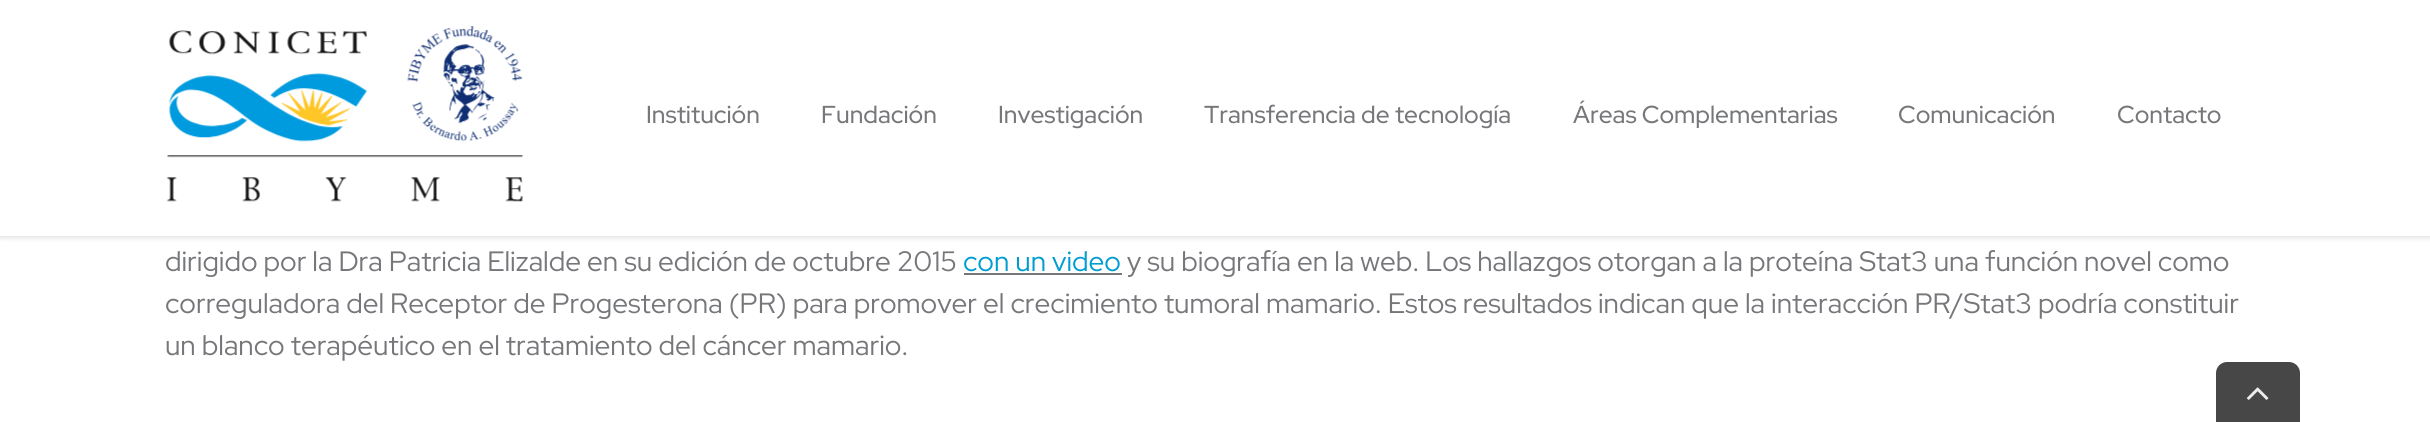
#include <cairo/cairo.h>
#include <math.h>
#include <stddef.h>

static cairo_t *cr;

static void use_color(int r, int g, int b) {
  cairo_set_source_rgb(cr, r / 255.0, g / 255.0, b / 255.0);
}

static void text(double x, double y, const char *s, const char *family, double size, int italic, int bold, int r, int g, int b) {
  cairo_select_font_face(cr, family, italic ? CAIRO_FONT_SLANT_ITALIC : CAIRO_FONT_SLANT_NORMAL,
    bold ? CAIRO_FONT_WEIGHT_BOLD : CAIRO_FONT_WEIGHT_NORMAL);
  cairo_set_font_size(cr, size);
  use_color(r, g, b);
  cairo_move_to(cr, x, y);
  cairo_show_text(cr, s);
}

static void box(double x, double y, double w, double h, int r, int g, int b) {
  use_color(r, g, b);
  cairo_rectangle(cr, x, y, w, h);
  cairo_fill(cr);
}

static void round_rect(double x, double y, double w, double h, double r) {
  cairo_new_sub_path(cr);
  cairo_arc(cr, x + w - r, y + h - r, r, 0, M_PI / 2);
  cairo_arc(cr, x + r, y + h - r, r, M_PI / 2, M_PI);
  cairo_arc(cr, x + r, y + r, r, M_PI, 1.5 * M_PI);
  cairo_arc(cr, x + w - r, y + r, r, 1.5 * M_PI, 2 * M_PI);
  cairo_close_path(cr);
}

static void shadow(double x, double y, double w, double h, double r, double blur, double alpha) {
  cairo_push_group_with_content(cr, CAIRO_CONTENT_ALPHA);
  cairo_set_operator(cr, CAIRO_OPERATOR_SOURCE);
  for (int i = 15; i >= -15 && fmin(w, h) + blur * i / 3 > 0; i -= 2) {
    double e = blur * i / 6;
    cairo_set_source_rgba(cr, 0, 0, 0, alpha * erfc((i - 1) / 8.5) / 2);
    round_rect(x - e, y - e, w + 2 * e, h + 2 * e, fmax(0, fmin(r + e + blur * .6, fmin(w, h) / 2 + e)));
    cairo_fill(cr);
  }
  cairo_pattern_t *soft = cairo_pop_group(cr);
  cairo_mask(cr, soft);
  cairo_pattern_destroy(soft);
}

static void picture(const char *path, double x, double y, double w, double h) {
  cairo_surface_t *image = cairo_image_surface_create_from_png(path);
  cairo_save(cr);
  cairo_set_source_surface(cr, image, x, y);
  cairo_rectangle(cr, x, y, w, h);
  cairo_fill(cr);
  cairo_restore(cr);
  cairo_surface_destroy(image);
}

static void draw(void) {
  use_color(255, 255, 255);
  cairo_paint(cr);
  use_color(0, 0, 0);
  shadow(0, 2, 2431, 236, 0, 2.5, 0.12);
  box(0, 0, 2430, 236, 255, 255, 255);
  picture("img_01.png", 166, 26, 357, 176);
  box(964, 273, 158, 2, 118, 119, 122);
  use_color(71, 71, 71);
  cairo_new_path(cr);
  cairo_move_to(cr, 2227, 362);
  cairo_line_to(cr, 2289, 362);
  cairo_curve_to(cr, 2295, 362, 2300, 367, 2300, 373);
  cairo_line_to(cr, 2300, 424);
  cairo_line_to(cr, 2216, 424);
  cairo_line_to(cr, 2216, 373);
  cairo_curve_to(cr, 2216, 367, 2221, 362, 2227, 362);
  cairo_close_path(cr);
  cairo_fill(cr);
  picture("img_02.png", 2247, 387, 22, 13);
  text(646, 123, "Institución", "Red Hat Display Medium", 24.5, 0, 0, 118, 119, 122);
  text(821, 123, "Fundación", "Red Hat Display Medium", 24.5, 0, 0, 118, 119, 122);
  text(998, 123, "Investigación", "Red Hat Display Medium", 24.5, 0, 0, 118, 119, 122);
  text(1204, 123, "Transferencia de tecnología", "Red Hat Display Medium", 24.5, 0, 0, 118, 119, 122);
  text(1573, 123, "Áreas Complementarias", "Red Hat Display Medium", 24.5, 0, 0, 118, 119, 122);
  text(1898, 123, "Comunicación", "Red Hat Display Medium", 24.5, 0, 0, 118, 119, 122);
  text(2117, 123, "Contacto", "Red Hat Display Medium", 24.5, 0, 0, 118, 119, 122);
  text(165, 271, "dirigido por la Dra Patricia Elizalde en su edición de octubre 2015", "Red Hat Display", 28, 0, 0, 118, 119, 122);
  text(963, 271, "con un video", "Red Hat Display", 28, 0, 0, 0, 157, 209);
  text(1127, 271, "y su biografía en la web. Los hallazgos otorgan a la proteína Stat3 una función novel como", "Red Hat Display", 28, 0, 0, 118, 119, 122);
  text(165, 313, "correguladora del Receptor de Progesterona (PR) para promover el crecimiento tumoral mamario. Estos resultados indican que la interacción PR/Stat3 podría constituir", "Red Hat Display", 28, 0, 0, 118, 119, 122);
  text(165, 355, "un blanco terapéutico en el tratamiento del cáncer mamario.", "Red Hat Display", 28, 0, 0, 118, 119, 122);
}

int main(void) {
  cairo_surface_t *surface = cairo_image_surface_create(CAIRO_FORMAT_RGB24, 2430, 422);
  cr = cairo_create(surface);
  cairo_font_options_t *options = cairo_font_options_create();
  cairo_font_options_set_hint_metrics(options, CAIRO_HINT_METRICS_OFF);
  cairo_font_options_set_hint_style(options, CAIRO_HINT_STYLE_NONE);
  cairo_set_font_options(cr, options);
  cairo_set_miter_limit(cr, 4);
  draw();
  cairo_surface_write_to_png(surface, "out.png");
  cairo_font_options_destroy(options);
  cairo_destroy(cr);
  cairo_surface_destroy(surface);
  return 0;
}
